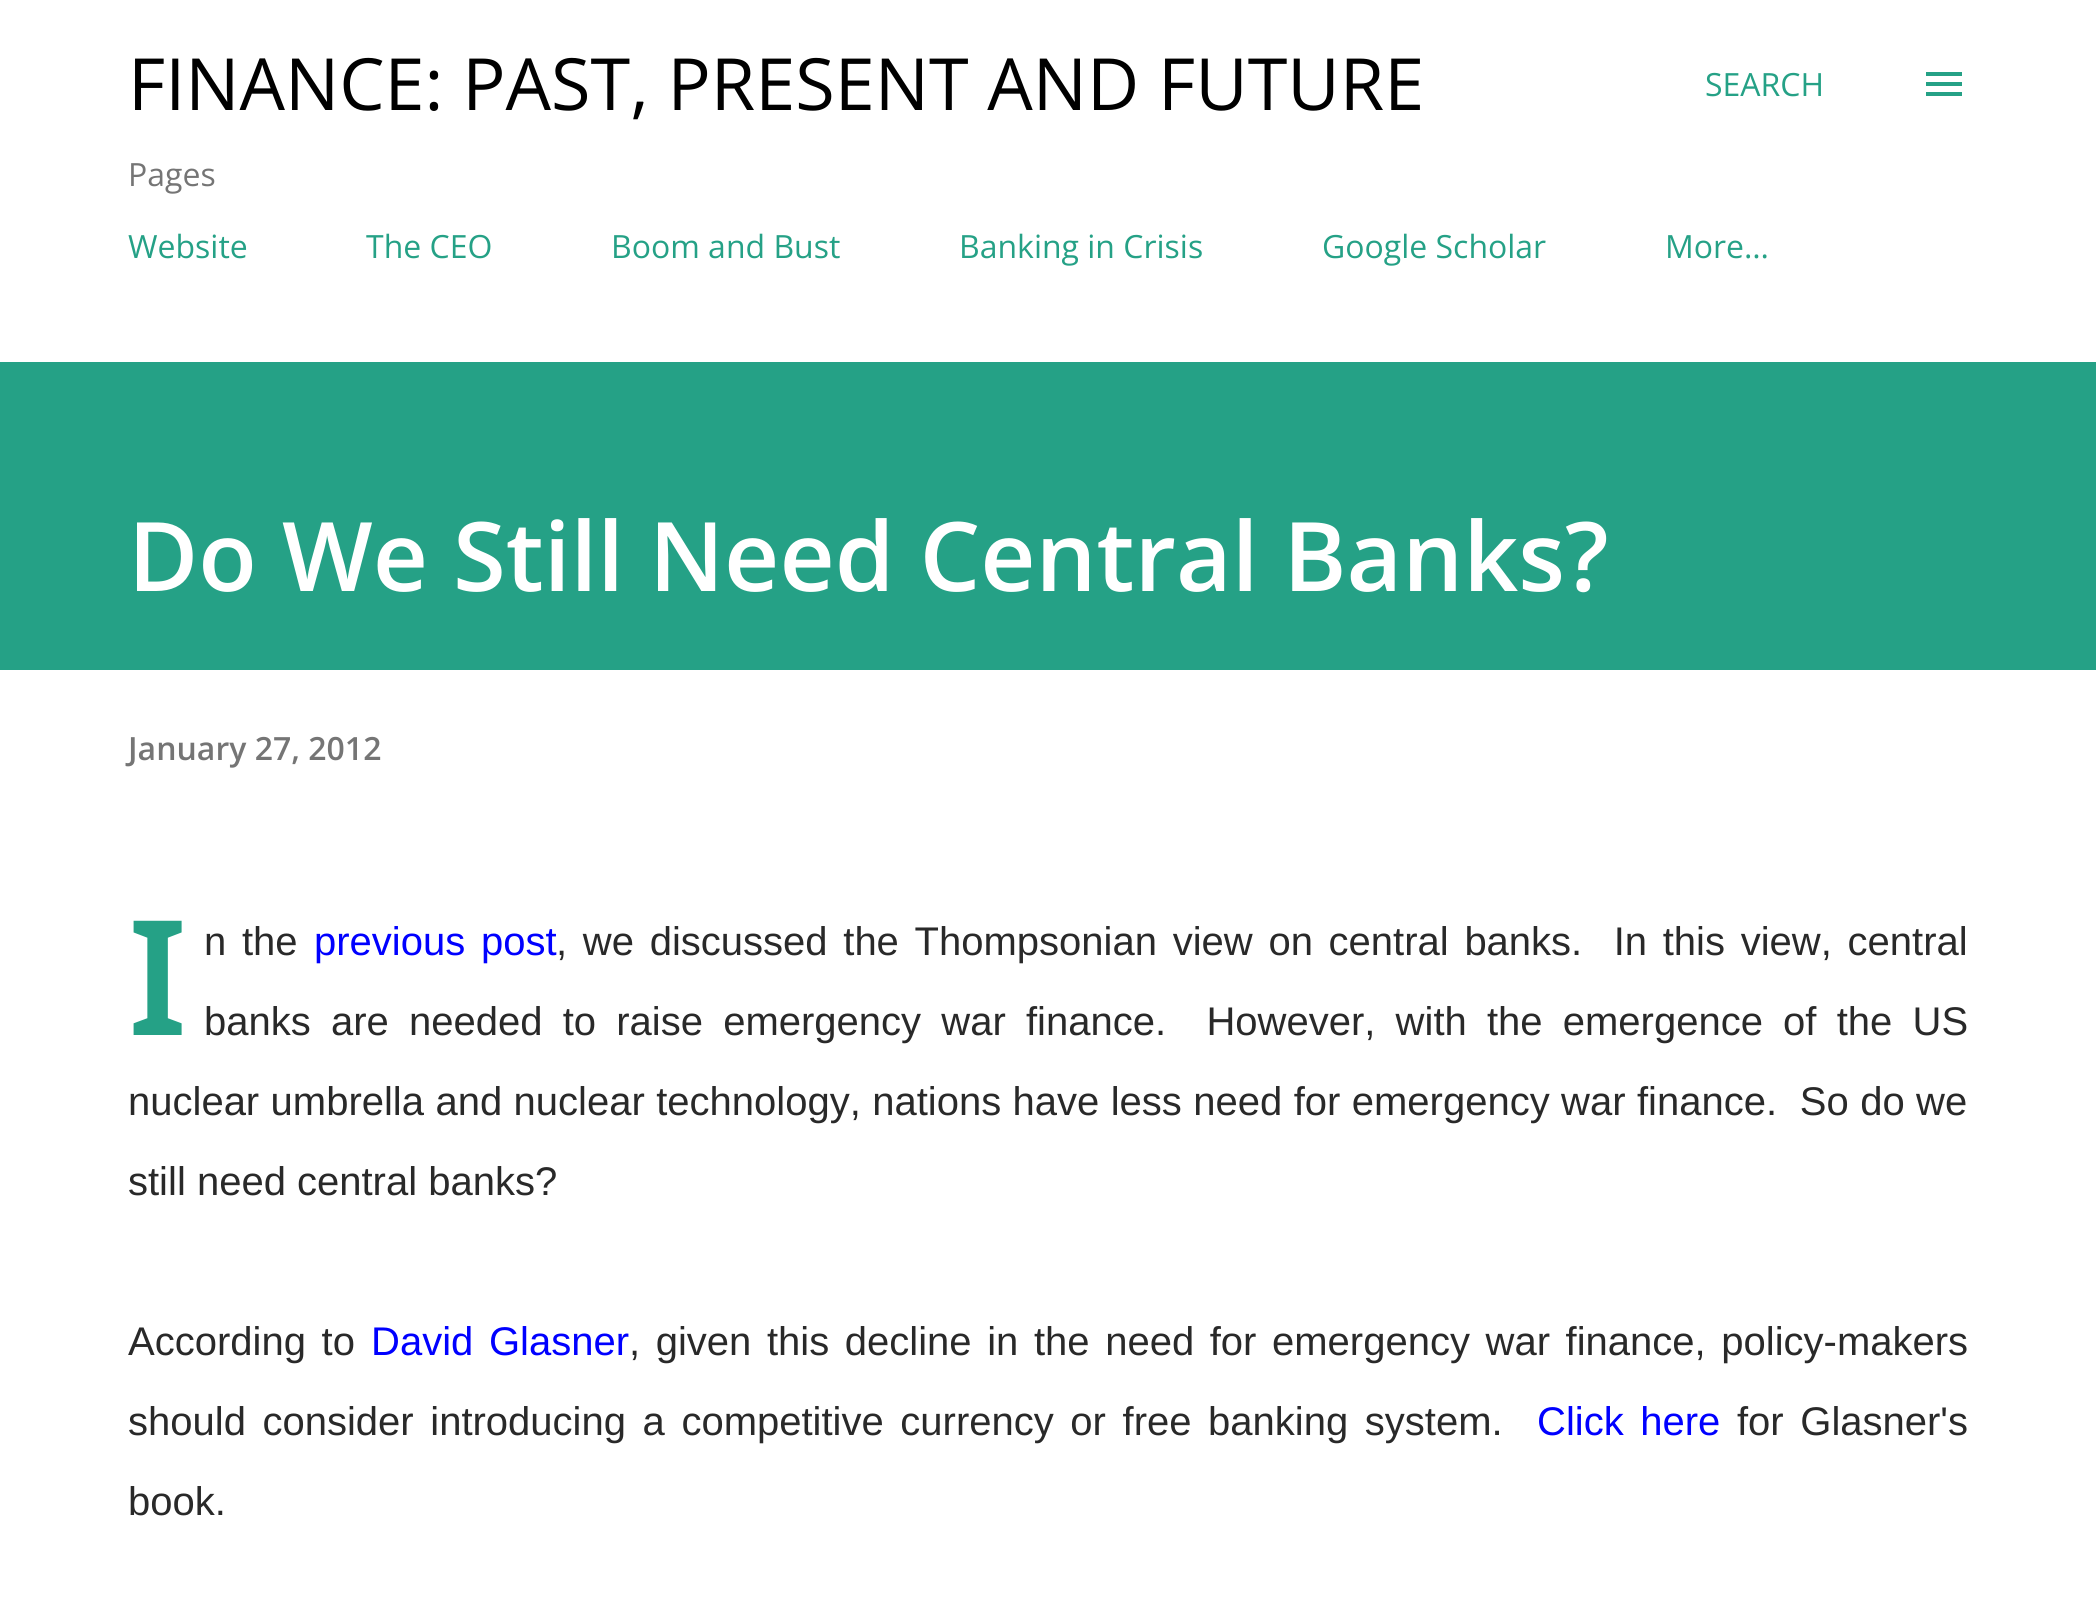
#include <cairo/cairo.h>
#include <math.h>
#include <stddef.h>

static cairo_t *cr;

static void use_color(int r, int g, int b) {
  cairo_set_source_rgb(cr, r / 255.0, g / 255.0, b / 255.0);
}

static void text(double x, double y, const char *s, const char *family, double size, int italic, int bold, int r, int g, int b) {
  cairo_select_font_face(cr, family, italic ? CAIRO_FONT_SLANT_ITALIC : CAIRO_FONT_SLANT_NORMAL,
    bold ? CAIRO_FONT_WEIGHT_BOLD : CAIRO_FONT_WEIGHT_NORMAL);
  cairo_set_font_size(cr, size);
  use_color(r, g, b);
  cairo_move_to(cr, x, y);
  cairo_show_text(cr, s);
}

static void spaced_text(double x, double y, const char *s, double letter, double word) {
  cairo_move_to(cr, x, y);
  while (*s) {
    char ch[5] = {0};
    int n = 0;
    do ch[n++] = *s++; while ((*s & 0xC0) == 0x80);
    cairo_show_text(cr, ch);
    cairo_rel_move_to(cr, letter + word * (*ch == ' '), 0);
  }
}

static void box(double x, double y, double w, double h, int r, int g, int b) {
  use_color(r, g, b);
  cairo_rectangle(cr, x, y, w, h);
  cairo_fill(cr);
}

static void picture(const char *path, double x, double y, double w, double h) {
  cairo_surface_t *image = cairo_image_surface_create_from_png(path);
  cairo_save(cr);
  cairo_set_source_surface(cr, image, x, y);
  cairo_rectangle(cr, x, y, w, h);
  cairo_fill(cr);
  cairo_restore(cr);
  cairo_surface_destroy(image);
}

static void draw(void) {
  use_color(255, 255, 255);
  cairo_paint(cr);
  picture("img_01.png", 1926, 72, 36, 24);
  box(0, 362, 2096, 308, 37, 161, 134);
  text(128, 110, "FINANCE: PAST, PRESENT AND FUTURE", "Open Sans", 72, 0, 0, 0, 0, 0);
  text(1705, 96, "SEARCH", "Open Sans", 32, 0, 0, 37, 161, 134);
  text(128, 186, "Pages", "Open Sans", 32, 0, 0, 117, 117, 117);
  text(128, 258, "Website", "Open Sans", 32, 0, 0, 37, 161, 134);
  text(366, 258, "The CEO", "Open Sans", 32, 0, 0, 37, 161, 134);
  text(611, 258, "Boom and Bust", "Open Sans", 32, 0, 0, 37, 161, 134);
  text(959, 258, "Banking in Crisis", "Open Sans", 32, 0, 0, 37, 161, 134);
  text(1322, 258, "Google Scholar", "Open Sans", 32, 0, 0, 37, 161, 134);
  text(1665, 258, "More…", "Open Sans", 32, 0, 0, 37, 161, 134);
  text(128, 591, "Do We Still Need Central Banks?", "Open Sans SemiBold", 96, 0, 0, 255, 255, 255);
  text(128, 760, "January 27, 2012", "Open Sans SemiBold", 32, 0, 0, 117, 117, 117);
  text(128, 1035, "I", "Noto Sans SemiBold", 160, 0, 0, 37, 161, 134);
  cairo_select_font_face(cr, "Liberation Sans", CAIRO_FONT_SLANT_NORMAL, CAIRO_FONT_WEIGHT_NORMAL);
  cairo_set_font_size(cr, 40);
  use_color(41, 41, 41);
  spaced_text(204, 955, "n the", 0, 4.6);
  use_color(0, 0, 255);
  spaced_text(314, 955, "previous post", 0, 4.6);
  use_color(41, 41, 41);
  spaced_text(556, 955, ", we discussed the Thompsonian view on central banks.  In this view, central", 0, 4.6);
  spaced_text(204, 1035, "banks are needed to raise emergency war finance.  However, with the emergence of the US", 0, 9.1);
  spaced_text(128, 1115, "nuclear umbrella and nuclear technology, nations have less need for emergency war finance.  So do we", 0, 0.3);
  text(128, 1195, "still need central banks?", "Liberation Sans", 40, 0, 0, 41, 41, 41);
  spaced_text(128, 1355, "According to", 0, 4.6);
  use_color(0, 0, 255);
  spaced_text(371, 1355, "David Glasner", 0, 4.6);
  use_color(41, 41, 41);
  spaced_text(629, 1355, ", given this decline in the need for emergency war finance, policy-makers", 0, 4.5);
  spaced_text(128, 1435, "should consider introducing a competitive currency or free banking system.", 0, 5.5);
  use_color(0, 0, 255);
  spaced_text(1537, 1435, "Click here", 0, 5.5);
  use_color(41, 41, 41);
  spaced_text(1737, 1435, "for Glasner's", 0, 5.5);
  text(128, 1515, "book.", "Liberation Sans", 40, 0, 0, 41, 41, 41);
}

int main(void) {
  cairo_surface_t *surface = cairo_image_surface_create(CAIRO_FORMAT_RGB24, 2096, 1624);
  cr = cairo_create(surface);
  cairo_font_options_t *options = cairo_font_options_create();
  cairo_font_options_set_hint_metrics(options, CAIRO_HINT_METRICS_OFF);
  cairo_font_options_set_hint_style(options, CAIRO_HINT_STYLE_NONE);
  cairo_set_font_options(cr, options);
  cairo_set_miter_limit(cr, 4);
  draw();
  cairo_surface_write_to_png(surface, "out.png");
  cairo_font_options_destroy(options);
  cairo_destroy(cr);
  cairo_surface_destroy(surface);
  return 0;
}
